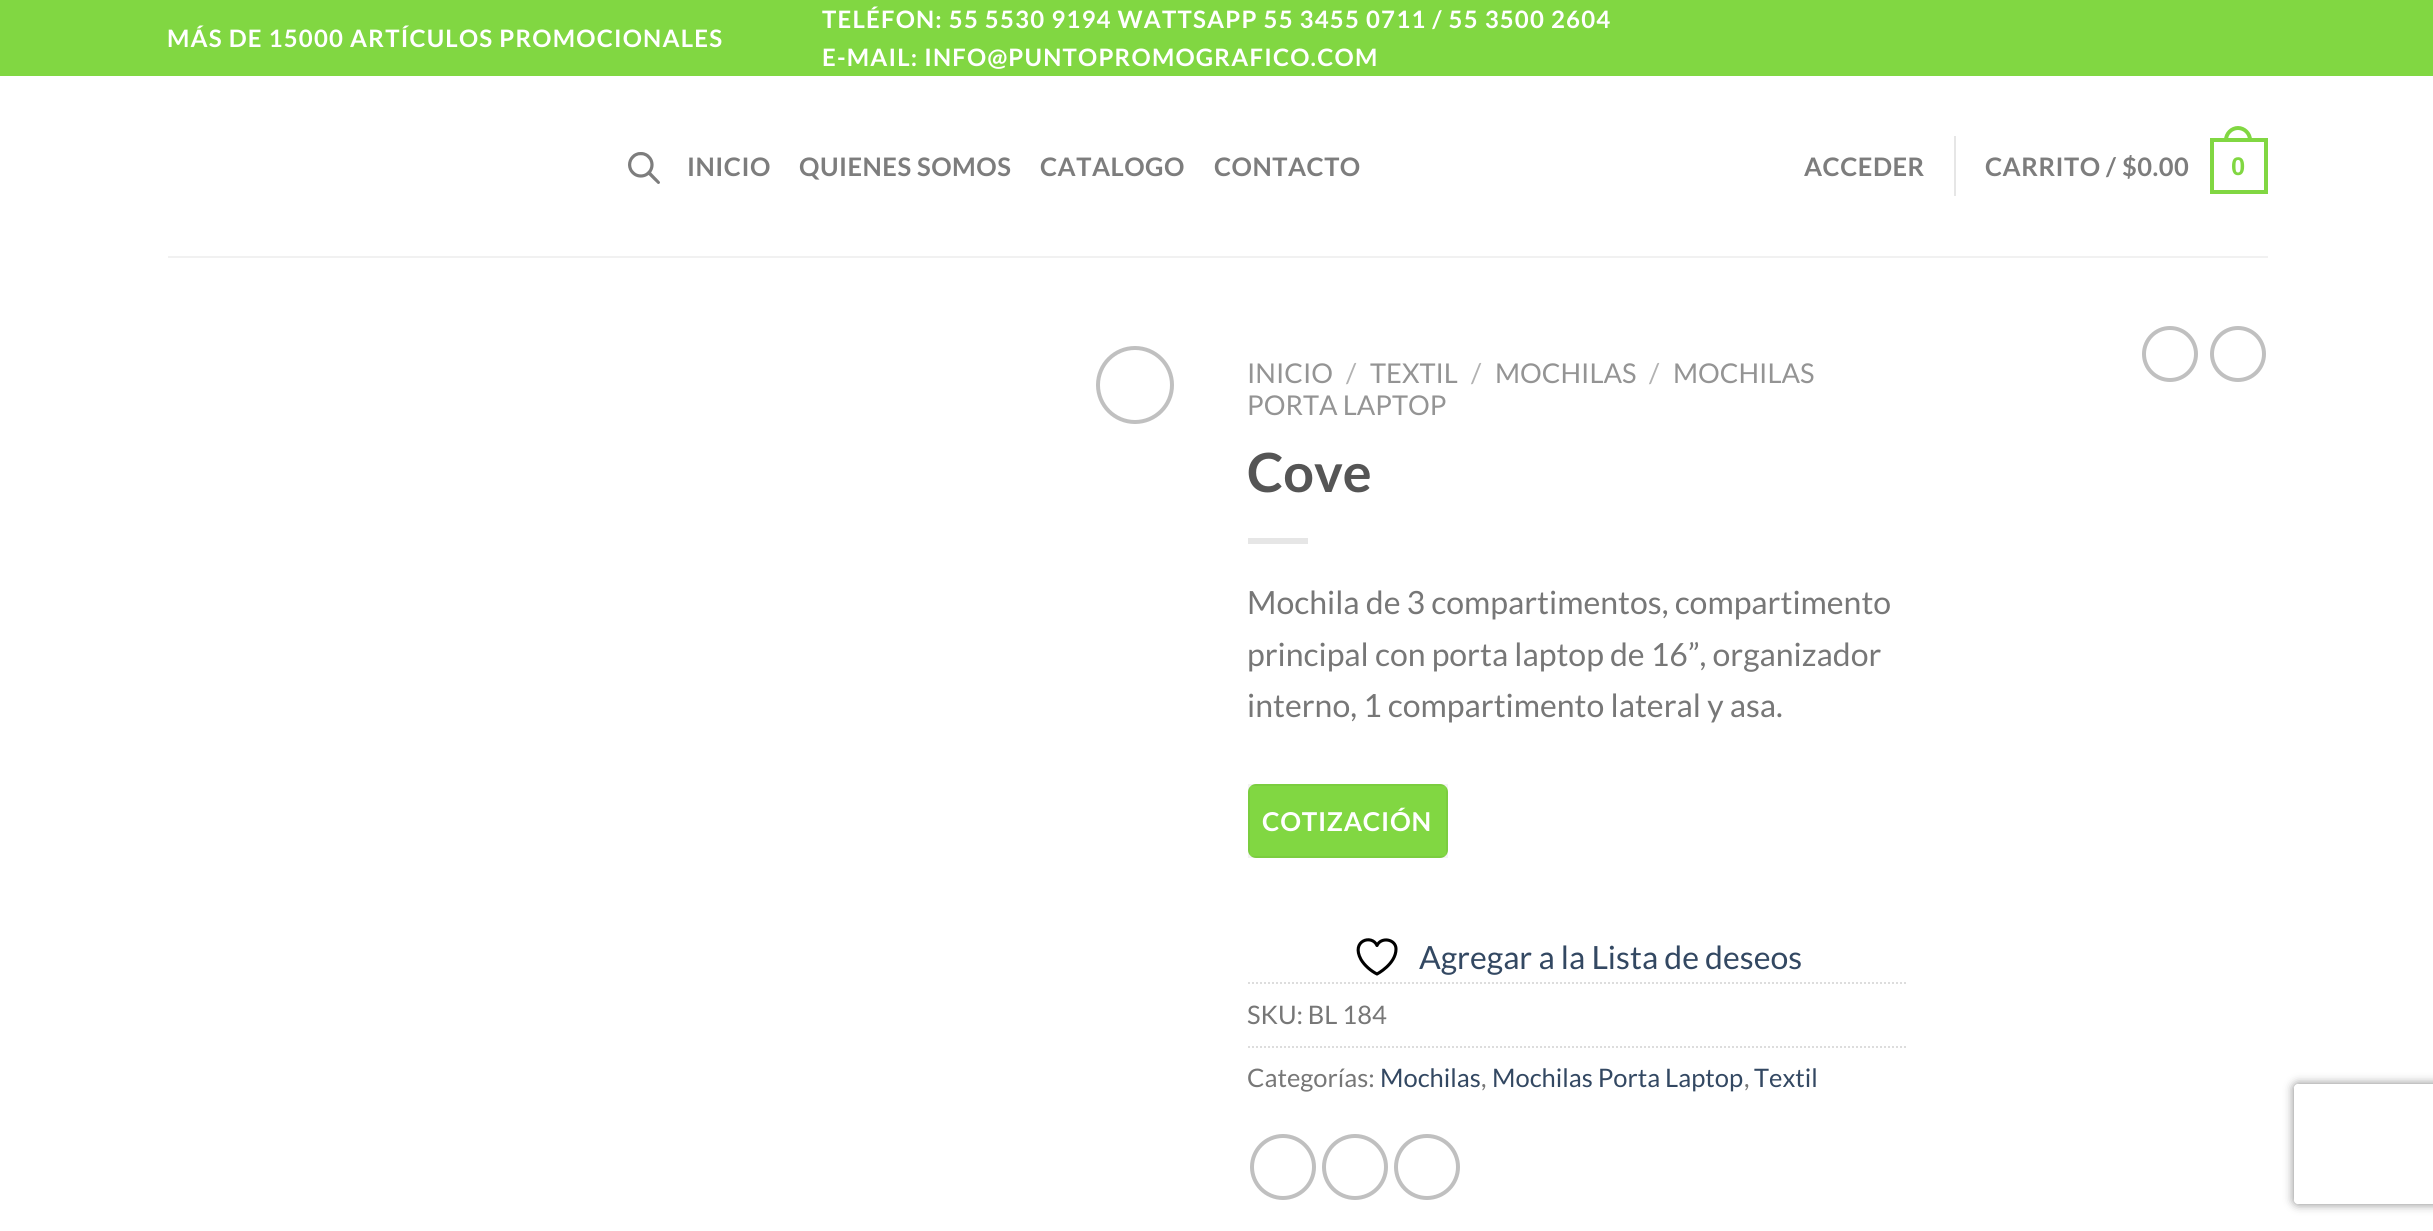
#include <cairo/cairo.h>
#include <math.h>
#include <stddef.h>

static cairo_t *cr;

static void use_color(int r, int g, int b) {
  cairo_set_source_rgb(cr, r / 255.0, g / 255.0, b / 255.0);
}

static void text(double x, double y, const char *s, const char *family, double size, int italic, int bold, int r, int g, int b) {
  cairo_select_font_face(cr, family, italic ? CAIRO_FONT_SLANT_ITALIC : CAIRO_FONT_SLANT_NORMAL,
    bold ? CAIRO_FONT_WEIGHT_BOLD : CAIRO_FONT_WEIGHT_NORMAL);
  cairo_set_font_size(cr, size);
  use_color(r, g, b);
  cairo_move_to(cr, x, y);
  cairo_show_text(cr, s);
}

static void spaced_text(double x, double y, const char *s, double letter, double word) {
  cairo_move_to(cr, x, y);
  while (*s) {
    char ch[5] = {0};
    int n = 0;
    do ch[n++] = *s++; while ((*s & 0xC0) == 0x80);
    cairo_show_text(cr, ch);
    cairo_rel_move_to(cr, letter + word * (*ch == ' '), 0);
  }
}

static void box(double x, double y, double w, double h, int r, int g, int b) {
  use_color(r, g, b);
  cairo_rectangle(cr, x, y, w, h);
  cairo_fill(cr);
}

static void round_rect(double x, double y, double w, double h, double r) {
  cairo_new_sub_path(cr);
  cairo_arc(cr, x + w - r, y + h - r, r, 0, M_PI / 2);
  cairo_arc(cr, x + r, y + h - r, r, M_PI / 2, M_PI);
  cairo_arc(cr, x + r, y + r, r, M_PI, 1.5 * M_PI);
  cairo_arc(cr, x + w - r, y + r, r, 1.5 * M_PI, 2 * M_PI);
  cairo_close_path(cr);
}

static void shadow(double x, double y, double w, double h, double r, double blur, double alpha) {
  cairo_push_group_with_content(cr, CAIRO_CONTENT_ALPHA);
  cairo_set_operator(cr, CAIRO_OPERATOR_SOURCE);
  for (int i = 15; i >= -15 && fmin(w, h) + blur * i / 3 > 0; i -= 2) {
    double e = blur * i / 6;
    cairo_set_source_rgba(cr, 0, 0, 0, alpha * erfc((i - 1) / 8.5) / 2);
    round_rect(x - e, y - e, w + 2 * e, h + 2 * e, fmax(0, fmin(r + e + blur * .6, fmin(w, h) / 2 + e)));
    cairo_fill(cr);
  }
  cairo_pattern_t *soft = cairo_pop_group(cr);
  cairo_mask(cr, soft);
  cairo_pattern_destroy(soft);
}

static void picture(const char *path, double x, double y, double w, double h) {
  cairo_surface_t *image = cairo_image_surface_create_from_png(path);
  cairo_save(cr);
  cairo_set_source_surface(cr, image, x, y);
  cairo_rectangle(cr, x, y, w, h);
  cairo_fill(cr);
  cairo_restore(cr);
  cairo_surface_destroy(image);
}

static void draw(void) {
  use_color(255, 255, 255);
  cairo_paint(cr);
  box(0, 0, 2433, 76, 129, 215, 66);
  picture("img_01.png", 628, 152, 32, 32);
  box(1954, 136, 2, 60, 230, 230, 230);
  cairo_rectangle(cr, 2212, 140, 54, 52);
  use_color(129, 215, 66);
  cairo_set_line_width(cr, 4);
  cairo_stroke(cr);
  cairo_set_fill_rule(cr, CAIRO_FILL_RULE_EVEN_ODD);
  cairo_new_path(cr);
  cairo_move_to(cr, 2238, 126);
  cairo_curve_to(cr, 2245.5, 126, 2252, 132.5, 2252, 140);
  cairo_line_to(cr, 2252, 142);
  cairo_line_to(cr, 2224, 142);
  cairo_line_to(cr, 2224, 140);
  cairo_curve_to(cr, 2224, 132.5, 2230.5, 126, 2238, 126);
  cairo_close_path(cr);
  cairo_move_to(cr, 2238, 130);
  cairo_curve_to(cr, 2243.5, 130, 2248, 134.5, 2248, 140);
  cairo_line_to(cr, 2248, 142);
  cairo_line_to(cr, 2228, 142);
  cairo_line_to(cr, 2228, 140);
  cairo_curve_to(cr, 2228, 134.5, 2232.5, 130, 2238, 130);
  cairo_close_path(cr);
  cairo_fill(cr);
  box(168, 256, 2100, 2, 241, 241, 241);
  cairo_arc(cr, 1135, 385, 37, 0, 2 * M_PI);
  use_color(192, 192, 192);
  cairo_stroke(cr);
  box(1248, 538, 60, 6, 230, 230, 230);
  use_color(129, 215, 66);
  round_rect(1248, 784, 200, 74, 8);
  cairo_fill(cr);
  cairo_rectangle(cr, 1249, 785, 198, 72);
  cairo_set_source_rgba(cr, 0, 0, 0, 0.05);
  cairo_set_line_width(cr, 2);
  cairo_stroke(cr);
  cairo_new_path(cr);
  cairo_move_to(cr, 1396, 949);
  cairo_curve_to(cr, 1396, 939, 1381, 936.5, 1377, 945.5);
  cairo_curve_to(cr, 1372, 934, 1350.5, 940.5, 1361, 959.5);
  cairo_curve_to(cr, 1364.5, 965.5, 1371, 971, 1377, 974);
  cairo_curve_to(cr, 1377, 974, 1396, 964, 1396, 949);
  cairo_close_path(cr);
  use_color(0, 0, 0);
  cairo_set_line_width(cr, 3.1);
  cairo_set_line_cap(cr, CAIRO_LINE_CAP_ROUND);
  cairo_set_line_join(cr, CAIRO_LINE_JOIN_ROUND);
  cairo_stroke(cr);
  cairo_new_path(cr);
  cairo_move_to(cr, 1248, 983);
  cairo_line_to(cr, 1908, 983);
  use_color(221, 221, 221);
  cairo_set_line_width(cr, 2);
  cairo_set_line_cap(cr, CAIRO_LINE_CAP_BUTT);
  cairo_set_line_join(cr, CAIRO_LINE_JOIN_MITER);
  cairo_set_dash(cr, (double[]){2, 2}, 2, 0);
  cairo_stroke(cr);
  cairo_new_path(cr);
  cairo_move_to(cr, 1248, 1047);
  cairo_line_to(cr, 1908, 1047);
  cairo_stroke(cr);
  cairo_arc(cr, 1283, 1167, 31, 0, 2 * M_PI);
  use_color(192, 192, 192);
  cairo_set_line_width(cr, 4);
  cairo_set_dash(cr, NULL, 0, 0);
  cairo_stroke(cr);
  cairo_arc(cr, 1355, 1167, 31, 0, 2 * M_PI);
  cairo_stroke(cr);
  cairo_arc(cr, 1427, 1167, 31, 0, 2 * M_PI);
  cairo_stroke(cr);
  cairo_arc(cr, 2170, 354, 26, 0, 2 * M_PI);
  cairo_stroke(cr);
  cairo_arc(cr, 2238, 354, 26, 0, 2 * M_PI);
  cairo_stroke(cr);
  cairo_save(cr);
  cairo_new_path(cr);
  cairo_move_to(cr, 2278, 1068);
  cairo_line_to(cr, 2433, 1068);
  cairo_line_to(cr, 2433, 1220);
  cairo_line_to(cr, 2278, 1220);
  cairo_close_path(cr);
  cairo_move_to(cr, 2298, 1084);
  cairo_line_to(cr, 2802, 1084);
  cairo_curve_to(cr, 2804, 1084, 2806, 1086, 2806, 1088);
  cairo_line_to(cr, 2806, 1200);
  cairo_curve_to(cr, 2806, 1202, 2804, 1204, 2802, 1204);
  cairo_line_to(cr, 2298, 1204);
  cairo_curve_to(cr, 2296, 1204, 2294, 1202, 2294, 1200);
  cairo_line_to(cr, 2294, 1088);
  cairo_curve_to(cr, 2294, 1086, 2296, 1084, 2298, 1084);
  cairo_close_path(cr);
  cairo_clip(cr);
  use_color(128, 128, 128);
  shadow(2294, 1084, 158, 120, 4, 5, 1);
  cairo_restore(cr);
  cairo_select_font_face(cr, "Lato", CAIRO_FONT_SLANT_NORMAL, CAIRO_FONT_WEIGHT_BOLD);
  cairo_set_font_size(cr, 24);
  use_color(255, 255, 255);
  spaced_text(167, 47, "MÁS DE 15000 ARTÍCULOS PROMOCIONALES", 1.2, 0);
  spaced_text(822, 28, "TELÉFON: 55 5530 9194 WATTSAPP 55 3455 0711 / 55 3500 2604", 1.2, 0);
  spaced_text(822, 66, "E-MAIL: INFO@PUNTOPROMOGRAFICO.COM", 1.2, 0);
  cairo_set_font_size(cr, 25.5);
  use_color(125, 125, 125);
  spaced_text(687, 176, "INICIO", 0.5, 0);
  spaced_text(799, 176, "QUIENES SOMOS", 0.5, 0);
  spaced_text(1040, 176, "CATALOGO", 0.5, 0);
  spaced_text(1214, 176, "CONTACTO", 0.5, 0);
  spaced_text(1804, 176, "ACCEDER", 0.5, 0);
  spaced_text(1985, 176, "CARRITO / $0.00", 0.5, 0);
  cairo_select_font_face(cr, "Liberation Sans", CAIRO_FONT_SLANT_NORMAL, CAIRO_FONT_WEIGHT_BOLD);
  use_color(129, 215, 66);
  spaced_text(2231, 175, "0", 0.5, 0);
  text(1247, 383, "INICIO", "Lato", 27.25, 0, 0, 148, 148, 148);
  text(1346, 383, "/", "Lato", 27.25, 0, 0, 178, 178, 178);
  text(1370, 383, "TEXTIL", "Lato", 27.25, 0, 0, 148, 148, 148);
  text(1471, 383, "/", "Lato", 27.25, 0, 0, 178, 178, 178);
  text(1495, 383, "MOCHILAS", "Lato", 27.25, 0, 0, 148, 148, 148);
  text(1649, 383, "/", "Lato", 27.25, 0, 0, 178, 178, 178);
  text(1673, 383, "MOCHILAS", "Lato", 27.25, 0, 0, 148, 148, 148);
  text(1247, 415, "PORTA LAPTOP", "Lato", 27.25, 0, 0, 148, 148, 148);
  text(1247, 492, "Cove", "Lato", 54, 0, 1, 85, 85, 85);
  text(1247, 614, "Mochila de 3 compartimentos, compartimento", "Lato", 32, 0, 0, 119, 119, 119);
  text(1247, 666, "principal con porta laptop de 16”, organizador", "Lato", 32, 0, 0, 119, 119, 119);
  text(1247, 717, "interno, 1 compartimento lateral y asa.", "Lato", 32, 0, 0, 119, 119, 119);
  cairo_select_font_face(cr, "Lato", CAIRO_FONT_SLANT_NORMAL, CAIRO_FONT_WEIGHT_BOLD);
  cairo_set_font_size(cr, 26);
  use_color(255, 255, 255);
  spaced_text(1262, 831, "COTIZACIÓN", 0.75, 0);
  text(1419, 969, "Agregar a la Lista de deseos", "Lato", 32, 0, 0, 51, 72, 98);
  text(1247, 1024, "SKU: BL 184", "Lato", 25.5, 0, 0, 119, 119, 119);
  text(1247, 1087, "Categorías:", "Lato", 25.5, 0, 0, 119, 119, 119);
  text(1380, 1087, "Mochilas", "Lato", 25.5, 0, 0, 51, 72, 98);
  text(1481, 1087, ",", "Lato", 25.5, 0, 0, 119, 119, 119);
  text(1492, 1087, "Mochilas Porta Laptop", "Lato", 25.5, 0, 0, 51, 72, 98);
  text(1744, 1087, ",", "Lato", 25.5, 0, 0, 119, 119, 119);
  text(1754, 1087, "Textil", "Lato", 25.5, 0, 0, 51, 72, 98);
}

int main(void) {
  cairo_surface_t *surface = cairo_image_surface_create(CAIRO_FORMAT_RGB24, 2433, 1231);
  cr = cairo_create(surface);
  cairo_font_options_t *options = cairo_font_options_create();
  cairo_font_options_set_hint_metrics(options, CAIRO_HINT_METRICS_OFF);
  cairo_font_options_set_hint_style(options, CAIRO_HINT_STYLE_NONE);
  cairo_set_font_options(cr, options);
  cairo_set_miter_limit(cr, 4);
  draw();
  cairo_surface_write_to_png(surface, "out.png");
  cairo_font_options_destroy(options);
  cairo_destroy(cr);
  cairo_surface_destroy(surface);
  return 0;
}
